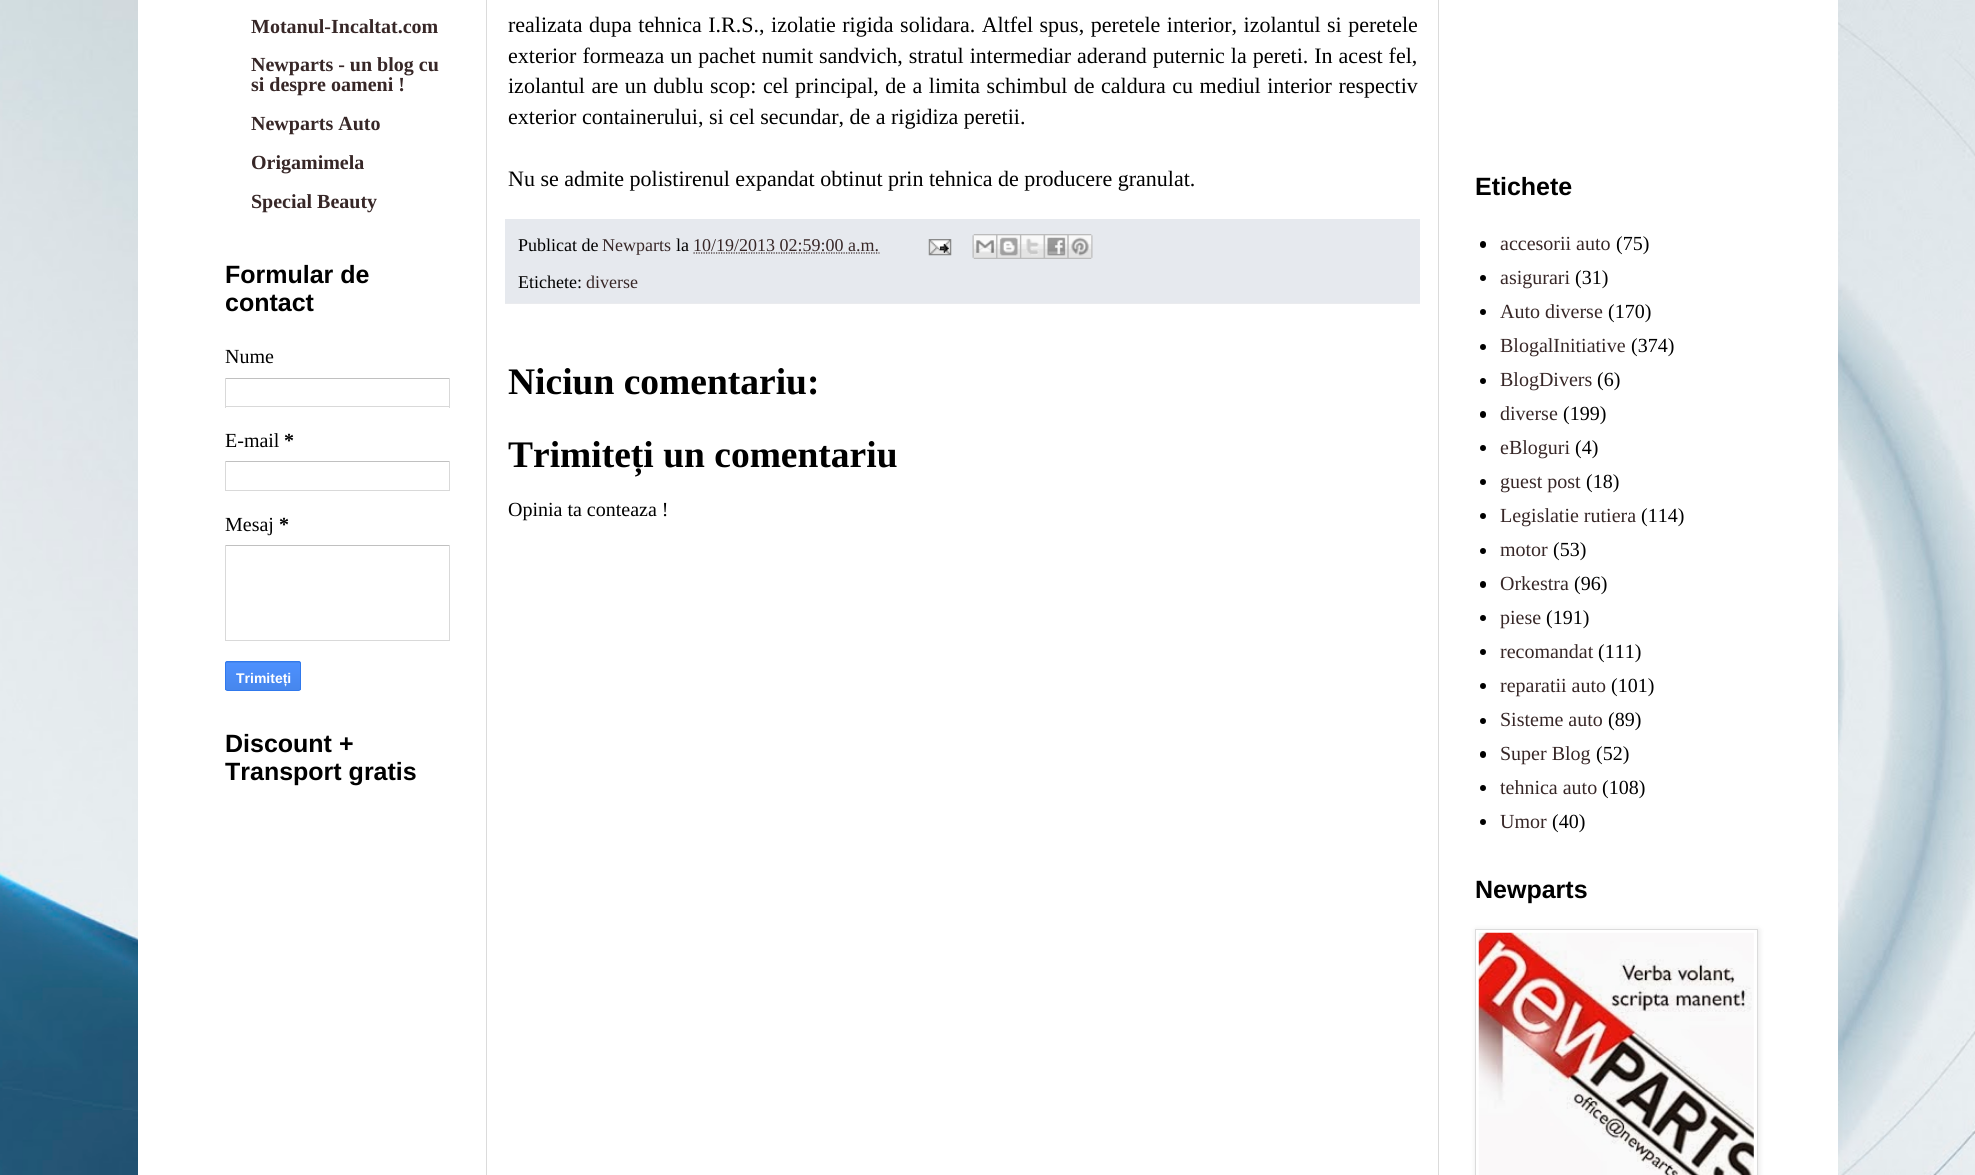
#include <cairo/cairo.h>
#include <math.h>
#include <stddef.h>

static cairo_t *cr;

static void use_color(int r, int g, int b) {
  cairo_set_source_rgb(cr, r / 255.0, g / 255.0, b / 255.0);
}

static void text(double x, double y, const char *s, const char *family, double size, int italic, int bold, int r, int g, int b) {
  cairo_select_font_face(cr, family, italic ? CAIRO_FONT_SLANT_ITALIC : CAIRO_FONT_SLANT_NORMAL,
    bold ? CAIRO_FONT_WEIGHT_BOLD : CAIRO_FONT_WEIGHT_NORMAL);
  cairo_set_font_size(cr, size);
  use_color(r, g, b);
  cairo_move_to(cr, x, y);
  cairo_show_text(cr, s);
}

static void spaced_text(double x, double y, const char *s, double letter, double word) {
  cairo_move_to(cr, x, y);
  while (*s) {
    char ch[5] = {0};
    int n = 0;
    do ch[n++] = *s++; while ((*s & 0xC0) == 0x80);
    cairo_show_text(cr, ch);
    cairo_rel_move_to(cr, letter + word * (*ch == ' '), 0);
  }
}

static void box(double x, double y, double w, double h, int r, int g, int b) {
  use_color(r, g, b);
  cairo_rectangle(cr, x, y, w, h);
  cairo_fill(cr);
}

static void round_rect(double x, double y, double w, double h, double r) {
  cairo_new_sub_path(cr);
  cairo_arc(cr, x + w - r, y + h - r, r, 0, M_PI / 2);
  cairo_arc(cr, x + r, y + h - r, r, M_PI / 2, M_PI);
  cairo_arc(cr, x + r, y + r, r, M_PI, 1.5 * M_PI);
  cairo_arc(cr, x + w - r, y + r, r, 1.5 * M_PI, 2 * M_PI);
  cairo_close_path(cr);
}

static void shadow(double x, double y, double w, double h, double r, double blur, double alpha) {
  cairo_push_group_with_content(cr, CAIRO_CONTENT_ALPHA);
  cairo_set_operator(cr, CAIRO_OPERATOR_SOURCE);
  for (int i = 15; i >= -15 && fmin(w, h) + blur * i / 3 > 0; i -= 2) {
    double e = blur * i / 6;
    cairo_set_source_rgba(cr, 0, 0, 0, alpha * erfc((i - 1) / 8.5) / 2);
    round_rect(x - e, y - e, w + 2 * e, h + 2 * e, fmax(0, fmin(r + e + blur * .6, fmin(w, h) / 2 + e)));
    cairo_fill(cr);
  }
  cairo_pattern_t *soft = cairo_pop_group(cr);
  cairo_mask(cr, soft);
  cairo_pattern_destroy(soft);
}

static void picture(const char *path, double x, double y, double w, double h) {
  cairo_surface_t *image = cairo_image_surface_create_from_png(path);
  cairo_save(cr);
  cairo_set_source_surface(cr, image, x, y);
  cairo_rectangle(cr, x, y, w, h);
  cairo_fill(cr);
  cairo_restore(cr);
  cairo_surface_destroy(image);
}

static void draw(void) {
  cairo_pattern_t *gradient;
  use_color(255, 255, 255);
  cairo_paint(cr);
  picture("img_01.png", 0, 0, 1975, 1175);
  box(138, 0, 1700, 1175, 255, 255, 255);
  box(486, 0, 1, 1175, 219, 219, 219);
  box(1438, 0, 1, 1175, 219, 219, 219);
  box(225, 378, 225, 1, 192, 192, 192);
  box(449, 378, 1, 30, 217, 217, 217);
  box(225, 406, 225, 1, 217, 217, 217);
  box(225, 378, 1, 30, 217, 217, 217);
  box(225, 461, 225, 1, 192, 192, 192);
  box(449, 461, 1, 30, 217, 217, 217);
  box(225, 490, 225, 1, 217, 217, 217);
  box(225, 461, 1, 30, 217, 217, 217);
  box(225, 545, 225, 1, 192, 192, 192);
  box(449, 545, 1, 96, 217, 217, 217);
  box(225, 640, 225, 1, 217, 217, 217);
  box(225, 545, 1, 96, 217, 217, 217);
  cairo_save(cr);
  round_rect(225, 661, 76, 30, 2.5);
  cairo_clip(cr);
  gradient = cairo_pattern_create_linear(263, 635, 263, 663);
  cairo_pattern_add_color_stop_rgba(gradient, 0, 0.302, 0.565, 0.996, 1);
  cairo_pattern_add_color_stop_rgba(gradient, 1, 0.278, 0.529, 0.929, 1);
  cairo_set_source(cr, gradient);
  cairo_pattern_destroy(gradient);
  cairo_rectangle(cr, 225, 661, 76, 2);
  cairo_fill(cr);
  cairo_restore(cr);
  gradient = cairo_pattern_create_linear(263, 663, 263, 690);
  cairo_pattern_add_color_stop_rgba(gradient, 0, 0.302, 0.565, 0.996, 1);
  cairo_pattern_add_color_stop_rgba(gradient, 1, 0.278, 0.529, 0.929, 1);
  cairo_set_source(cr, gradient);
  cairo_pattern_destroy(gradient);
  cairo_rectangle(cr, 225, 663, 76, 27);
  cairo_fill(cr);
  round_rect(225.5, 661.5, 75, 29, 2);
  use_color(48, 121, 237);
  cairo_set_line_width(cr, 1);
  cairo_stroke(cr);
  box(505, 219, 915, 84, 230, 233, 238);
  box(505, 303, 915, 1, 234, 235, 238);
  cairo_new_path(cr);
  cairo_move_to(cr, 693.5, 253);
  cairo_line_to(cr, 879.5, 253);
  use_color(55, 39, 39);
  cairo_set_line_width(cr, 1.2);
  cairo_set_dash(cr, (double[]){1.25, 1.25}, 2, 0);
  cairo_stroke(cr);
  picture("img_02.png", 928, 239, 24, 17);
  picture("img_03.png", 972, 234, 25, 25);
  picture("img_04.png", 996, 234, 24, 25);
  picture("img_05.png", 1020, 234, 24, 25);
  picture("img_06.png", 1043, 234, 25, 25);
  picture("img_07.png", 1067, 234, 26, 25);
  use_color(0, 0, 0);
  round_rect(1480, 241, 6, 7, 3);
  cairo_fill(cr);
  cairo_arc(cr, 1483, 278, 3, 0, 2 * M_PI);
  cairo_fill(cr);
  cairo_arc(cr, 1483, 312, 3, 0, 2 * M_PI);
  cairo_fill(cr);
  cairo_arc(cr, 1483, 347, 3, 0, 2 * M_PI);
  cairo_fill(cr);
  cairo_arc(cr, 1483, 381, 3, 0, 2 * M_PI);
  cairo_fill(cr);
  round_rect(1480, 411, 6, 7, 3);
  cairo_fill(cr);
  cairo_arc(cr, 1483, 448, 3, 0, 2 * M_PI);
  cairo_fill(cr);
  cairo_arc(cr, 1483, 482, 3, 0, 2 * M_PI);
  cairo_fill(cr);
  cairo_arc(cr, 1483, 516, 3, 0, 2 * M_PI);
  cairo_fill(cr);
  cairo_arc(cr, 1483, 551, 3, 0, 2 * M_PI);
  cairo_fill(cr);
  round_rect(1480, 581, 6, 7, 3);
  cairo_fill(cr);
  cairo_arc(cr, 1483, 618, 3, 0, 2 * M_PI);
  cairo_fill(cr);
  cairo_arc(cr, 1483, 652, 3, 0, 2 * M_PI);
  cairo_fill(cr);
  cairo_arc(cr, 1483, 686, 3, 0, 2 * M_PI);
  cairo_fill(cr);
  cairo_arc(cr, 1483, 721, 3, 0, 2 * M_PI);
  cairo_fill(cr);
  round_rect(1480, 751, 6, 7, 3);
  cairo_fill(cr);
  cairo_arc(cr, 1483, 788, 3, 0, 2 * M_PI);
  cairo_fill(cr);
  cairo_arc(cr, 1483, 822, 3, 0, 2 * M_PI);
  cairo_fill(cr);
  use_color(0, 0, 0);
  shadow(1476, 930, 283, 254, 0, 3, 0.1);
  use_color(255, 255, 255);
  cairo_rectangle(cr, 1475.5, 929.5, 282, 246);
  cairo_fill_preserve(cr);
  use_color(219, 219, 219);
  cairo_set_line_width(cr, 1);
  cairo_set_dash(cr, NULL, 0, 0);
  cairo_stroke(cr);
  picture("img_08.png", 1478, 932, 276, 243);
  text(251, 33, "Motanul-Incaltat.com", "Tinos", 20, 0, 1, 55, 39, 39);
  text(251, 71, "Newparts - un blog cu", "Tinos", 20, 0, 1, 55, 39, 39);
  text(251, 91, "si despre oameni !", "Tinos", 20, 0, 1, 55, 39, 39);
  text(251, 130, "Newparts Auto", "Tinos", 20, 0, 1, 55, 39, 39);
  text(251, 169, "Origamimela", "Tinos", 20, 0, 1, 55, 39, 39);
  text(251, 208, "Special Beauty", "Tinos", 20, 0, 1, 55, 39, 39);
  text(225, 283, "Formular de", "Liberation Sans", 25, 0, 1, 0, 0, 0);
  text(225, 311, "contact", "Liberation Sans", 25, 0, 1, 0, 0, 0);
  text(225, 363, "Nume", "Tinos", 20, 0, 0, 0, 0, 0);
  text(225, 447, "E-mail", "Tinos", 20, 0, 0, 0, 0, 0);
  text(284, 447, "*", "Tinos", 20, 0, 1, 0, 0, 0);
  text(225, 531, "Mesaj", "Tinos", 20, 0, 0, 0, 0, 0);
  text(279, 531, "*", "Tinos", 20, 0, 1, 0, 0, 0);
  text(236, 683, "Trimiteți", "Liberation Sans", 14, 0, 1, 255, 255, 255);
  text(225, 752, "Discount +", "Liberation Sans", 25, 0, 1, 0, 0, 0);
  text(225, 780, "Transport gratis", "Liberation Sans", 25, 0, 1, 0, 0, 0);
  cairo_select_font_face(cr, "Tinos", CAIRO_FONT_SLANT_NORMAL, CAIRO_FONT_WEIGHT_NORMAL);
  cairo_set_font_size(cr, 22);
  spaced_text(508, 32, "realizata dupa tehnica I.R.S., izolatie rigida solidara. Altfel spus, peretele interior, izolantul si peretele", 0, 1);
  spaced_text(508, 63, "exterior formeaza un pachet numit sandvich, stratul intermediar aderand puternic la pereti. In acest fel,", 0, 0.5);
  spaced_text(508, 93, "izolantul are un dublu scop: cel principal, de a limita schimbul de caldura cu mediul interior respectiv", 0, 1);
  text(508, 124, "exterior containerului, si cel secundar, de a rigidiza peretii.", "Tinos", 22, 0, 0, 0, 0, 0);
  text(508, 186, "Nu se admite polistirenul expandat obtinut prin tehnica de producere granulat.", "Tinos", 22, 0, 0, 0, 0, 0);
  text(518, 251, "Publicat de", "Tinos", 18, 0, 0, 0, 0, 0);
  text(602, 251, "Newparts", "Tinos", 18, 0, 0, 55, 39, 39);
  text(676, 251, "la", "Tinos", 18, 0, 0, 0, 0, 0);
  text(693, 251, "10/19/2013 02:59:00 a.m.", "Tinos", 18, 0, 0, 55, 39, 39);
  text(518, 288, "Etichete:", "Tinos", 18, 0, 0, 0, 0, 0);
  text(586, 288, "diverse", "Tinos", 18, 0, 0, 55, 39, 39);
  text(508, 394, "Niciun comentariu:", "Tinos", 37.5, 0, 1, 0, 0, 0);
  text(508, 467, "Trimiteți un comentariu", "Tinos", 37.5, 0, 1, 0, 0, 0);
  text(508, 516, "Opinia ta conteaza !", "Tinos", 20, 0, 0, 0, 0, 0);
  text(1475, 195, "Etichete", "Liberation Sans", 25, 0, 1, 0, 0, 0);
  text(1500, 250, "accesorii auto", "Tinos", 20, 0, 0, 55, 39, 39);
  text(1616, 250, "(75)", "Tinos", 20, 0, 0, 0, 0, 0);
  text(1500, 284, "asigurari", "Tinos", 20, 0, 0, 55, 39, 39);
  text(1575, 284, "(31)", "Tinos", 20, 0, 0, 0, 0, 0);
  text(1500, 318, "Auto diverse", "Tinos", 20, 0, 0, 55, 39, 39);
  text(1608, 318, "(170)", "Tinos", 20, 0, 0, 0, 0, 0);
  text(1500, 352, "BlogalInitiative", "Tinos", 20, 0, 0, 55, 39, 39);
  text(1631, 352, "(374)", "Tinos", 20, 0, 0, 0, 0, 0);
  text(1500, 386, "BlogDivers", "Tinos", 20, 0, 0, 55, 39, 39);
  text(1597, 386, "(6)", "Tinos", 20, 0, 0, 0, 0, 0);
  text(1500, 420, "diverse", "Tinos", 20, 0, 0, 55, 39, 39);
  text(1563, 420, "(199)", "Tinos", 20, 0, 0, 0, 0, 0);
  text(1500, 454, "eBloguri", "Tinos", 20, 0, 0, 55, 39, 39);
  text(1575, 454, "(4)", "Tinos", 20, 0, 0, 0, 0, 0);
  text(1500, 488, "guest post", "Tinos", 20, 0, 0, 55, 39, 39);
  text(1586, 488, "(18)", "Tinos", 20, 0, 0, 0, 0, 0);
  text(1500, 522, "Legislatie rutiera", "Tinos", 20, 0, 0, 55, 39, 39);
  text(1641, 522, "(114)", "Tinos", 20, 0, 0, 0, 0, 0);
  text(1500, 556, "motor", "Tinos", 20, 0, 0, 55, 39, 39);
  text(1553, 556, "(53)", "Tinos", 20, 0, 0, 0, 0, 0);
  text(1500, 590, "Orkestra", "Tinos", 20, 0, 0, 55, 39, 39);
  text(1574, 590, "(96)", "Tinos", 20, 0, 0, 0, 0, 0);
  text(1500, 624, "piese", "Tinos", 20, 0, 0, 55, 39, 39);
  text(1546, 624, "(191)", "Tinos", 20, 0, 0, 0, 0, 0);
  text(1500, 658, "recomandat", "Tinos", 20, 0, 0, 55, 39, 39);
  text(1598, 658, "(111)", "Tinos", 20, 0, 0, 0, 0, 0);
  text(1500, 692, "reparatii auto", "Tinos", 20, 0, 0, 55, 39, 39);
  text(1611, 692, "(101)", "Tinos", 20, 0, 0, 0, 0, 0);
  text(1500, 726, "Sisteme auto", "Tinos", 20, 0, 0, 55, 39, 39);
  text(1608, 726, "(89)", "Tinos", 20, 0, 0, 0, 0, 0);
  text(1500, 760, "Super Blog", "Tinos", 20, 0, 0, 55, 39, 39);
  text(1596, 760, "(52)", "Tinos", 20, 0, 0, 0, 0, 0);
  text(1500, 794, "tehnica auto", "Tinos", 20, 0, 0, 55, 39, 39);
  text(1602, 794, "(108)", "Tinos", 20, 0, 0, 0, 0, 0);
  text(1500, 828, "Umor", "Tinos", 20, 0, 0, 55, 39, 39);
  text(1552, 828, "(40)", "Tinos", 20, 0, 0, 0, 0, 0);
  text(1475, 898, "Newparts", "Liberation Sans", 25, 0, 1, 0, 0, 0);
}

int main(void) {
  cairo_surface_t *surface = cairo_image_surface_create(CAIRO_FORMAT_RGB24, 1975, 1175);
  cr = cairo_create(surface);
  cairo_font_options_t *options = cairo_font_options_create();
  cairo_font_options_set_hint_metrics(options, CAIRO_HINT_METRICS_OFF);
  cairo_font_options_set_hint_style(options, CAIRO_HINT_STYLE_NONE);
  cairo_set_font_options(cr, options);
  cairo_set_miter_limit(cr, 4);
  draw();
  cairo_surface_write_to_png(surface, "out.png");
  cairo_font_options_destroy(options);
  cairo_destroy(cr);
  cairo_surface_destroy(surface);
  return 0;
}
